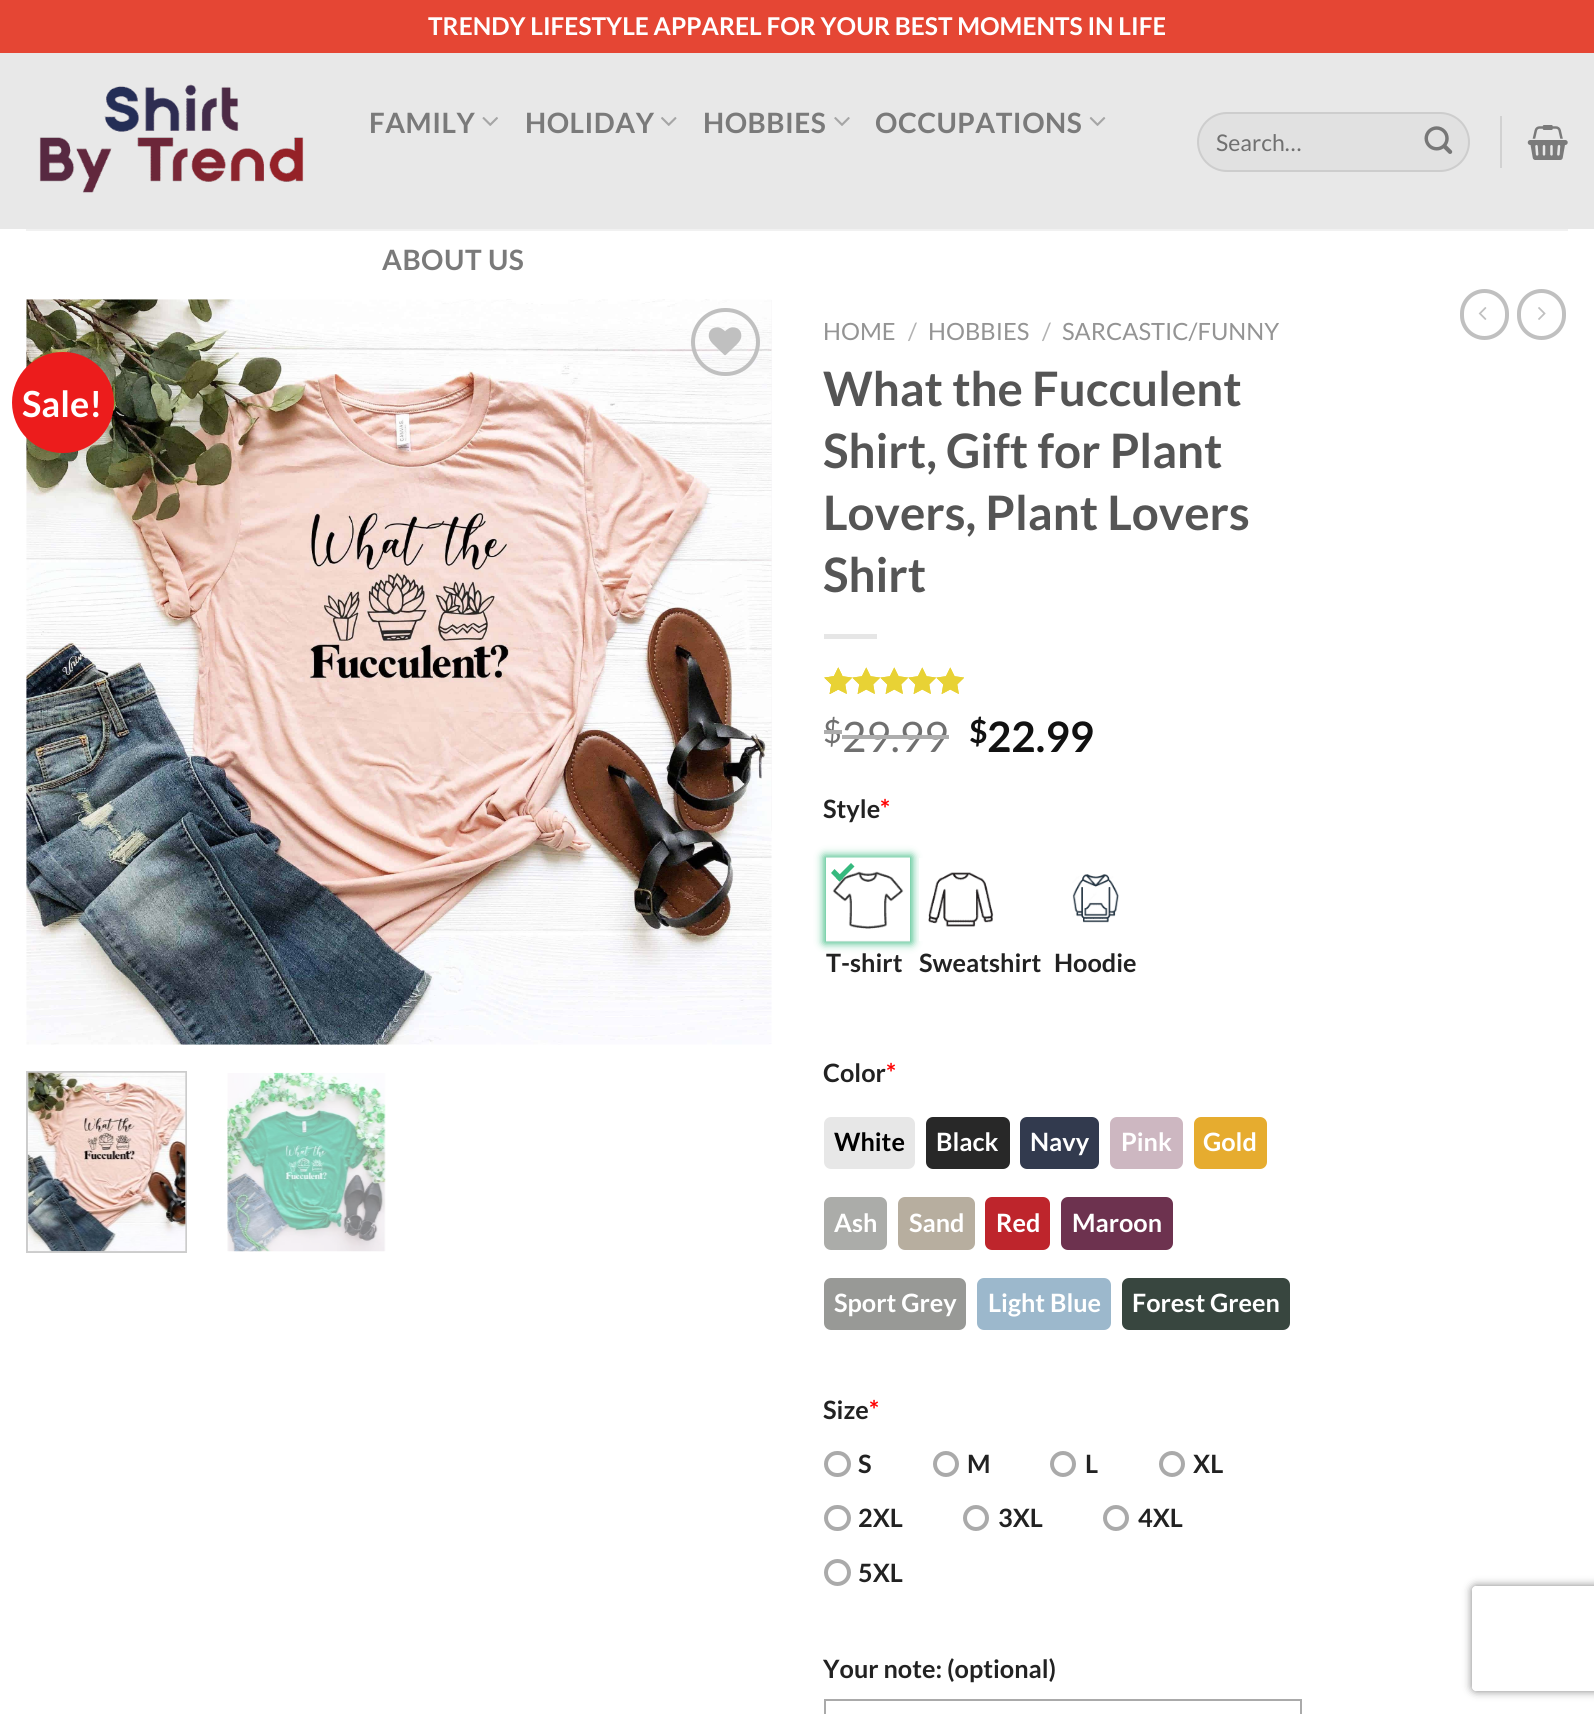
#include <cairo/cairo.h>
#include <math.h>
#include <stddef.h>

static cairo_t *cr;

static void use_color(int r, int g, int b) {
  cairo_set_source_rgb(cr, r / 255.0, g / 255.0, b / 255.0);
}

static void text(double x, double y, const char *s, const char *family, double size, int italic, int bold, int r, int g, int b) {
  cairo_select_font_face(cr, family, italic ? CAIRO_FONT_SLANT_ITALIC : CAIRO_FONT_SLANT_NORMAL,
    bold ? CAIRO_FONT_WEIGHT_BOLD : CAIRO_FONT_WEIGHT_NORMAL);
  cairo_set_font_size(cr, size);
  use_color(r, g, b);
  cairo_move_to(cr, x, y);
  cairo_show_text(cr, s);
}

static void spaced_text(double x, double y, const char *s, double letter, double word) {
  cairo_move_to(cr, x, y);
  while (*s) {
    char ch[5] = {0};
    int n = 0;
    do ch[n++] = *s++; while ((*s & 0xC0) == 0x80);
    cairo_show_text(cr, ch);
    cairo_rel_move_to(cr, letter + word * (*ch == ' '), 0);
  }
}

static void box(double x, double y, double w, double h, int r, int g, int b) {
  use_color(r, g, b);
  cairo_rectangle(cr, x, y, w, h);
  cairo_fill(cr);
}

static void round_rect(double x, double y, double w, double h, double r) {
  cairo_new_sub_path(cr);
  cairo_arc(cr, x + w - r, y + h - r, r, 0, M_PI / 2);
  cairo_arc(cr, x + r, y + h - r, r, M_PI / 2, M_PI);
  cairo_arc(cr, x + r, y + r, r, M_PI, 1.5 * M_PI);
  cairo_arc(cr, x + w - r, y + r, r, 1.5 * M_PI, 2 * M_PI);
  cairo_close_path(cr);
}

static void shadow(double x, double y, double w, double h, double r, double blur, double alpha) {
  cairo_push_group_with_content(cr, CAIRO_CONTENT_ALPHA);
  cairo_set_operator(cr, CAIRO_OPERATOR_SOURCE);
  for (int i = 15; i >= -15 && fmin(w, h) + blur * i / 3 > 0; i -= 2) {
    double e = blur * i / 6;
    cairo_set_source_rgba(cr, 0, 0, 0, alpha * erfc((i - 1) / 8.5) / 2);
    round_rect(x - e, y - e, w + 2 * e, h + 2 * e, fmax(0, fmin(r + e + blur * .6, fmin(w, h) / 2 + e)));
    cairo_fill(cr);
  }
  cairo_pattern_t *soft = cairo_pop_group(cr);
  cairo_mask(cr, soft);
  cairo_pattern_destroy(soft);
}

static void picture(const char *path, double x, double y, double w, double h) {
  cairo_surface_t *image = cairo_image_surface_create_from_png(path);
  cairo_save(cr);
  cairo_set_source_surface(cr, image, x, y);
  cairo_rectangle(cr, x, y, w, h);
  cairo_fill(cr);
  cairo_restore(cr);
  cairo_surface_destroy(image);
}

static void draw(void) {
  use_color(255, 255, 255);
  cairo_paint(cr);
  box(0, 0, 1594, 53, 229, 70, 52);
  box(0, 53, 1594, 176, 232, 232, 232);
  picture("img_01.png", 39, 84, 265, 109);
  picture("img_02.png", 482, 117, 16, 9);
  picture("img_03.png", 661, 117, 16, 9);
  picture("img_04.png", 834, 117, 16, 9);
  picture("img_05.png", 1089, 117, 17, 9);
  use_color(225, 225, 225);
  round_rect(1197, 112, 273, 60, 30);
  cairo_fill(cr);
  round_rect(1198, 113, 271, 58, 29);
  cairo_set_source_rgba(cr, 0, 0, 0, 0.09);
  cairo_stroke(cr);
  picture("img_06.png", 1424, 126, 29, 28);
  box(1500, 116, 2, 52, 209, 209, 209);
  picture("img_07.png", 1527, 125, 41, 35);
  box(26, 229, 1542, 2, 241, 241, 241);
  round_rect(1462, 291, 45, 47, 22.5);
  use_color(192, 192, 192);
  cairo_set_line_width(cr, 4);
  cairo_stroke(cr);
  picture("img_08.png", 1478, 307, 9, 13);
  round_rect(1519, 291, 45, 47, 22.5);
  cairo_stroke(cr);
  picture("img_09.png", 1538, 307, 8, 13);
  picture("img_10.png", 26, 299, 746, 746);
  picture("img_11.png", 771, 300, 1, 531);
  round_rect(693, 310, 65, 64, 32);
  cairo_stroke(cr);
  picture("img_12.png", 708, 327, 34, 29);
  use_color(236, 28, 28);
  round_rect(12, 352, 102, 101, 50.5);
  cairo_fill(cr);
  cairo_rectangle(cr, 27, 1072, 159, 180);
  use_color(204, 204, 204);
  cairo_set_line_width(cr, 2);
  cairo_stroke(cr);
  picture("img_13.png", 27, 1072, 159, 180);
  picture("img_14.png", 227, 1072, 159, 180);
  box(824, 634, 53, 5, 230, 230, 230);
  picture("img_15.png", 824, 667, 140, 27);
  picture("img_16.png", 824, 667, 140, 27);
  picture("img_17.png", 824, 667, 18, 27);
  use_color(54, 185, 126);
  shadow(824, 856, 88, 87, 0, 4.5, 1);
  picture("img_18.png", 826, 857, 84, 85);
  use_color(54, 185, 126);
  cairo_new_path(cr);
  cairo_move_to(cr, 851, 863);
  cairo_line_to(cr, 854.5, 866.5);
  cairo_line_to(cr, 839.5, 881.5);
  cairo_line_to(cr, 836, 878);
  cairo_close_path(cr);
  cairo_fill(cr);
  cairo_new_path(cr);
  cairo_move_to(cr, 834.5, 869);
  cairo_line_to(cr, 843.5, 878);
  cairo_line_to(cr, 839.5, 881.5);
  cairo_line_to(cr, 831, 873);
  cairo_close_path(cr);
  cairo_fill(cr);
  picture("img_19.png", 919, 858, 75, 83);
  picture("img_20.png", 1072, 874, 47, 49);
  use_color(231, 231, 231);
  round_rect(824, 1117, 91, 52, 7);
  cairo_fill(cr);
  use_color(40, 40, 40);
  round_rect(926, 1117, 84, 52, 7);
  cairo_fill(cr);
  use_color(50, 58, 78);
  round_rect(1020, 1117, 79, 52, 7);
  cairo_fill(cr);
  use_color(205, 183, 193);
  round_rect(1110, 1117, 73, 52, 7);
  cairo_fill(cr);
  use_color(230, 172, 47);
  round_rect(1194, 1117, 73, 52, 7);
  cairo_fill(cr);
  use_color(171, 172, 169);
  round_rect(824, 1197, 63, 53, 7);
  cairo_fill(cr);
  use_color(183, 174, 159);
  round_rect(898, 1197, 77, 53, 7);
  cairo_fill(cr);
  use_color(190, 37, 44);
  round_rect(985, 1197, 65, 53, 7);
  cairo_fill(cr);
  use_color(109, 50, 79);
  round_rect(1061, 1197, 112, 53, 7);
  cairo_fill(cr);
  use_color(152, 153, 150);
  round_rect(824, 1278, 142, 52, 7);
  cairo_fill(cr);
  use_color(156, 184, 204);
  round_rect(977, 1278, 134, 52, 7);
  cairo_fill(cr);
  use_color(56, 70, 63);
  round_rect(1122, 1278, 168, 52, 7);
  cairo_fill(cr);
  round_rect(826, 1453, 23, 22, 11);
  use_color(170, 170, 170);
  cairo_set_line_width(cr, 4);
  cairo_stroke(cr);
  cairo_arc(cr, 946, 1464, 11, 0, 2 * M_PI);
  cairo_stroke(cr);
  cairo_arc(cr, 1063, 1464, 11, 0, 2 * M_PI);
  cairo_stroke(cr);
  cairo_arc(cr, 1172, 1464, 11, 0, 2 * M_PI);
  cairo_stroke(cr);
  round_rect(826, 1507, 23, 22, 11);
  cairo_stroke(cr);
  cairo_arc(cr, 976, 1518, 11, 0, 2 * M_PI);
  cairo_stroke(cr);
  cairo_arc(cr, 1116, 1518, 11, 0, 2 * M_PI);
  cairo_stroke(cr);
  cairo_arc(cr, 837.5, 1572.5, 11.5, 0, 2 * M_PI);
  cairo_stroke(cr);
  cairo_rectangle(cr, 825, 1700, 476, 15);
  cairo_set_line_width(cr, 2);
  cairo_stroke(cr);
  cairo_save(cr);
  cairo_set_fill_rule(cr, CAIRO_FILL_RULE_EVEN_ODD);
  cairo_new_path(cr);
  cairo_move_to(cr, 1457, 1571);
  cairo_line_to(cr, 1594, 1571);
  cairo_line_to(cr, 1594, 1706);
  cairo_line_to(cr, 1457, 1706);
  cairo_close_path(cr);
  cairo_move_to(cr, 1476, 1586);
  cairo_line_to(cr, 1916, 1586);
  cairo_curve_to(cr, 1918, 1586, 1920, 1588, 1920, 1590);
  cairo_line_to(cr, 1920, 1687);
  cairo_curve_to(cr, 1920, 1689, 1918, 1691, 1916, 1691);
  cairo_line_to(cr, 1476, 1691);
  cairo_curve_to(cr, 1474, 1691, 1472, 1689, 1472, 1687);
  cairo_line_to(cr, 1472, 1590);
  cairo_curve_to(cr, 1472, 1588, 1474, 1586, 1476, 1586);
  cairo_close_path(cr);
  cairo_clip(cr);
  use_color(128, 128, 128);
  shadow(1472, 1586, 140, 105, 4, 4.5, 1);
  cairo_restore(cr);
  text(428, 35, "TRENDY LIFESTYLE APPAREL FOR YOUR BEST MOMENTS IN LIFE", "Lato", 24.5, 0, 1, 255, 255, 255);
  cairo_set_font_size(cr, 28);
  use_color(122, 122, 122);
  spaced_text(369, 133, "FAMILY", 0.5, 0);
  spaced_text(525, 133, "HOLIDAY", 0.5, 0);
  spaced_text(703, 133, "HOBBIES", 0.5, 0);
  spaced_text(875, 133, "OCCUPATIONS", 0.5, 0);
  spaced_text(382, 270, "ABOUT US", 0.5, 0);
  text(1216, 151, "Search…", "Lato", 23, 0, 0, 112, 112, 112);
  text(22, 417, "Sale!", "Lato", 36, 0, 1, 255, 255, 255);
  text(823, 340, "HOME", "Lato", 23.75, 0, 0, 148, 148, 148);
  text(908, 340, "/", "Lato", 23.75, 0, 0, 178, 178, 178);
  text(928, 340, "HOBBIES", "Lato", 23.75, 0, 0, 148, 148, 148);
  text(1042, 340, "/", "Lato", 23.75, 0, 0, 178, 178, 178);
  text(1062, 340, "SARCASTIC/FUNNY", "Lato", 23.75, 0, 0, 148, 148, 148);
  text(823, 406, "What the Fucculent", "Lato", 47.5, 0, 1, 85, 85, 85);
  text(823, 468, "Shirt, Gift for Plant", "Lato", 47.5, 0, 1, 85, 85, 85);
  text(823, 530, "Lovers, Plant Lovers", "Lato", 47.5, 0, 1, 85, 85, 85);
  text(823, 592, "Shirt", "Lato", 47.5, 0, 1, 85, 85, 85);
  text(823, 743, "$", "Lato", 32, 0, 0, 112, 112, 112);
  box(824, 730, 18, 4, 173, 173, 173);
  text(842, 752, "29.99", "Lato", 42, 0, 0, 112, 112, 112);
  box(842, 735, 107, 4, 173, 173, 173);
  text(969, 743, "$", "Lato", 32, 0, 1, 17, 17, 17);
  text(987, 752, "22.99", "Lato", 42, 0, 1, 17, 17, 17);
  text(823, 818, "Style", "Lato", 25.25, 0, 1, 34, 34, 34);
  text(880, 818, "*", "Lato", 25.25, 0, 1, 255, 0, 0);
  text(826, 972, "T-shirt", "Lato", 25.25, 0, 1, 34, 34, 34);
  text(919, 972, "Sweatshirt", "Lato", 25.25, 0, 1, 34, 34, 34);
  text(1054, 972, "Hoodie", "Lato", 25.25, 0, 1, 34, 34, 34);
  text(823, 1082, "Color", "Lato", 25.25, 0, 1, 34, 34, 34);
  text(886, 1082, "*", "Lato", 25.25, 0, 1, 255, 0, 0);
  text(834, 1151, "White", "Lato", 25.25, 0, 1, 0, 0, 0);
  text(936, 1151, "Black", "Lato", 25.25, 0, 1, 255, 255, 255);
  text(1030, 1151, "Navy", "Lato", 25.25, 0, 1, 255, 255, 255);
  text(1121, 1151, "Pink", "Lato", 25.25, 0, 1, 255, 255, 255);
  text(1203, 1151, "Gold", "Lato", 25.25, 0, 1, 255, 255, 255);
  text(834, 1232, "Ash", "Lato", 25.25, 0, 1, 255, 255, 255);
  text(909, 1232, "Sand", "Lato", 25.25, 0, 1, 255, 255, 255);
  text(996, 1232, "Red", "Lato", 25.25, 0, 1, 255, 255, 255);
  text(1072, 1232, "Maroon", "Lato", 25.25, 0, 1, 255, 255, 255);
  text(834, 1312, "Sport Grey", "Lato", 25.25, 0, 1, 255, 255, 255);
  text(988, 1312, "Light Blue", "Lato", 25.25, 0, 1, 255, 255, 255);
  text(1132, 1312, "Forest Green", "Lato", 25.25, 0, 1, 255, 255, 255);
  text(823, 1419, "Size", "Lato", 25.25, 0, 1, 34, 34, 34);
  text(869, 1419, "*", "Lato", 25.25, 0, 1, 255, 0, 0);
  text(858, 1473, "S", "Lato", 25.25, 0, 1, 34, 34, 34);
  text(967, 1473, "M", "Lato", 25.25, 0, 1, 34, 34, 34);
  text(1085, 1473, "L", "Lato", 25.25, 0, 1, 34, 34, 34);
  text(1193, 1473, "XL", "Lato", 25.25, 0, 1, 34, 34, 34);
  text(858, 1527, "2XL", "Lato", 25.25, 0, 1, 34, 34, 34);
  text(998, 1527, "3XL", "Lato", 25.25, 0, 1, 34, 34, 34);
  text(1138, 1527, "4XL", "Lato", 25.25, 0, 1, 34, 34, 34);
  text(858, 1582, "5XL", "Lato", 25.25, 0, 1, 34, 34, 34);
  text(823, 1678, "Your note: (optional)", "Lato", 25.25, 0, 1, 34, 34, 34);
}

int main(void) {
  cairo_surface_t *surface = cairo_image_surface_create(CAIRO_FORMAT_RGB24, 1594, 1714);
  cr = cairo_create(surface);
  cairo_font_options_t *options = cairo_font_options_create();
  cairo_font_options_set_hint_metrics(options, CAIRO_HINT_METRICS_OFF);
  cairo_font_options_set_hint_style(options, CAIRO_HINT_STYLE_NONE);
  cairo_set_font_options(cr, options);
  cairo_set_miter_limit(cr, 4);
  draw();
  cairo_surface_write_to_png(surface, "out.png");
  cairo_font_options_destroy(options);
  cairo_destroy(cr);
  cairo_surface_destroy(surface);
  return 0;
}
